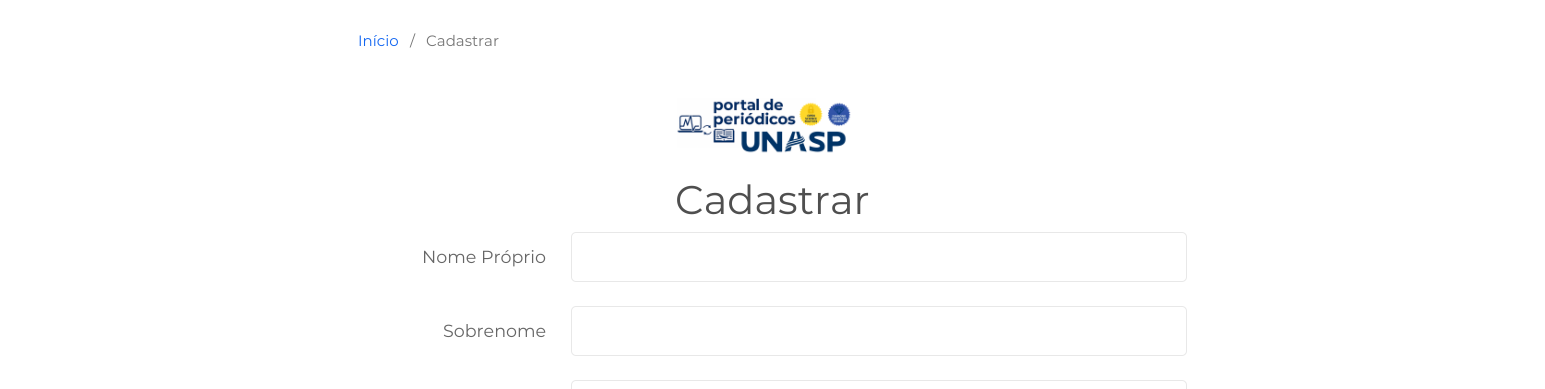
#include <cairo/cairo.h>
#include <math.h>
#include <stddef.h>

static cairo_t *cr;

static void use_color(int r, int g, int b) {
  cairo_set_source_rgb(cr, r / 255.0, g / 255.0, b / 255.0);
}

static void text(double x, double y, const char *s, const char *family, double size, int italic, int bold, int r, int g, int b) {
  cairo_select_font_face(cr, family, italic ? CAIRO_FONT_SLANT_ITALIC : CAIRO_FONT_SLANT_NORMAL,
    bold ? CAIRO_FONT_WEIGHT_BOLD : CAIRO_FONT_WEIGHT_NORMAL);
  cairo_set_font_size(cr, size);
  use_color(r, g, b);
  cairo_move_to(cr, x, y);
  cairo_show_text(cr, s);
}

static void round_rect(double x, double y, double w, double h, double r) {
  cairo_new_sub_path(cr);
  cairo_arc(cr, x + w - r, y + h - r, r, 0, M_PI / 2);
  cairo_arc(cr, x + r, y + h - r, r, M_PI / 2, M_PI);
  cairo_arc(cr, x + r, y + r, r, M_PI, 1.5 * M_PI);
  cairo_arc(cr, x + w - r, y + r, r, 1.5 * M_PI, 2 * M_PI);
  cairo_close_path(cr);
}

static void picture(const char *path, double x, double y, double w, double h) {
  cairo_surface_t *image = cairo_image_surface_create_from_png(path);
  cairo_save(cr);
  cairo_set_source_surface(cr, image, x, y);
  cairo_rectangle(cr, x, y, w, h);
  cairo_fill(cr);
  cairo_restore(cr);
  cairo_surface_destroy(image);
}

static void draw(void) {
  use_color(255, 255, 255);
  cairo_paint(cr);
  picture("img_01.png", 677, 98, 174, 55);
  round_rect(571.5, 232.5, 615, 49, 4.5);
  use_color(232, 232, 232);
  cairo_set_line_width(cr, 1);
  cairo_stroke(cr);
  round_rect(571.5, 306.5, 615, 49, 4.5);
  cairo_stroke(cr);
  round_rect(571.5, 380.5, 615, 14, 4.5);
  cairo_stroke(cr);
  text(358, 46, "Início", "Montserrat", 15, 0, 0, 18, 102, 241);
  text(410, 46, "/", "Montserrat", 15, 0, 0, 117, 117, 117);
  text(426, 46, "Cadastrar", "Montserrat", 15, 0, 0, 117, 117, 117);
  text(675, 214, "Cadastrar", "Montserrat", 40, 0, 0, 79, 79, 79);
  text(422, 263, "Nome Próprio", "Montserrat", 17.5, 0, 0, 102, 102, 102);
  text(443, 337, "Sobrenome", "Montserrat", 17.5, 0, 0, 102, 102, 102);
}

int main(void) {
  cairo_surface_t *surface = cairo_image_surface_create(CAIRO_FORMAT_RGB24, 1545, 389);
  cr = cairo_create(surface);
  cairo_font_options_t *options = cairo_font_options_create();
  cairo_font_options_set_hint_metrics(options, CAIRO_HINT_METRICS_OFF);
  cairo_font_options_set_hint_style(options, CAIRO_HINT_STYLE_NONE);
  cairo_set_font_options(cr, options);
  cairo_set_miter_limit(cr, 4);
  draw();
  cairo_surface_write_to_png(surface, "out.png");
  cairo_font_options_destroy(options);
  cairo_destroy(cr);
  cairo_surface_destroy(surface);
  return 0;
}
